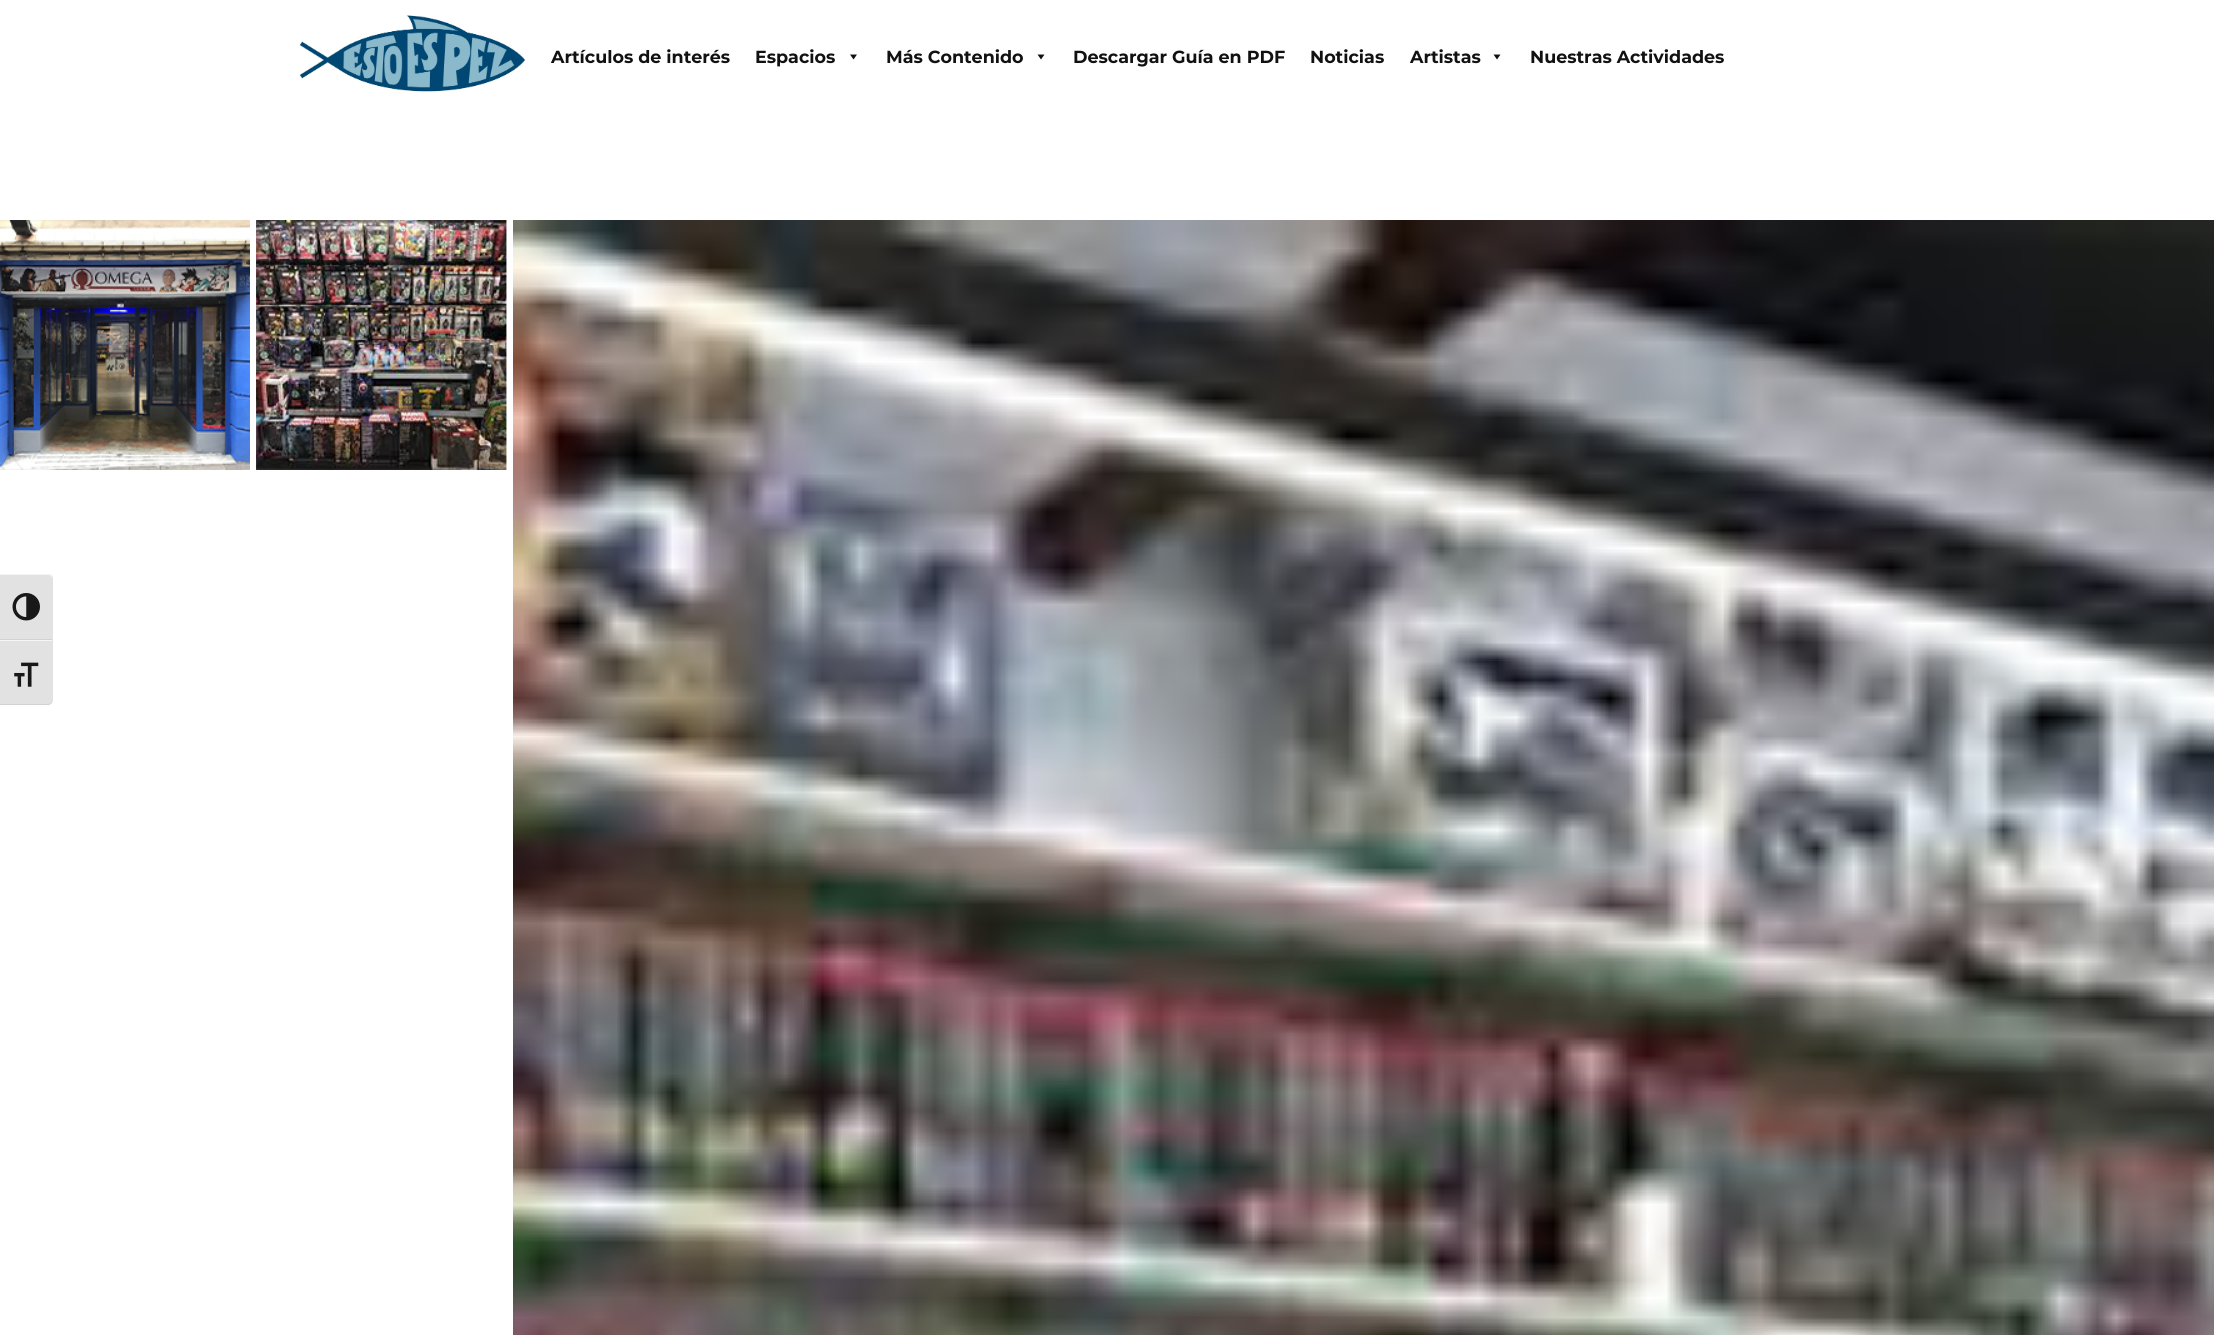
#include <cairo/cairo.h>
#include <math.h>
#include <stddef.h>

static cairo_t *cr;

static void use_color(int r, int g, int b) {
  cairo_set_source_rgb(cr, r / 255.0, g / 255.0, b / 255.0);
}

static void text(double x, double y, const char *s, const char *family, double size, int italic, int bold, int r, int g, int b) {
  cairo_select_font_face(cr, family, italic ? CAIRO_FONT_SLANT_ITALIC : CAIRO_FONT_SLANT_NORMAL,
    bold ? CAIRO_FONT_WEIGHT_BOLD : CAIRO_FONT_WEIGHT_NORMAL);
  cairo_set_font_size(cr, size);
  use_color(r, g, b);
  cairo_move_to(cr, x, y);
  cairo_show_text(cr, s);
}

static void box(double x, double y, double w, double h, int r, int g, int b) {
  use_color(r, g, b);
  cairo_rectangle(cr, x, y, w, h);
  cairo_fill(cr);
}

static void picture(const char *path, double x, double y, double w, double h) {
  cairo_surface_t *image = cairo_image_surface_create_from_png(path);
  cairo_save(cr);
  cairo_set_source_surface(cr, image, x, y);
  cairo_rectangle(cr, x, y, w, h);
  cairo_fill(cr);
  cairo_restore(cr);
  cairo_surface_destroy(image);
}

static void draw(void) {
  use_color(255, 255, 255);
  cairo_paint(cr);
  picture("img_01.png", 299, 15, 227, 77);
  use_color(17, 17, 17);
  cairo_new_path(cr);
  cairo_move_to(cr, 857, 54.5);
  cairo_line_to(cr, 853.5, 59.5);
  cairo_line_to(cr, 850, 54.5);
  cairo_close_path(cr);
  cairo_fill(cr);
  cairo_new_path(cr);
  cairo_move_to(cr, 1044.5, 54.5);
  cairo_line_to(cr, 1041, 59.5);
  cairo_line_to(cr, 1037.5, 54.5);
  cairo_close_path(cr);
  cairo_fill(cr);
  cairo_new_path(cr);
  cairo_move_to(cr, 1500.5, 54.5);
  cairo_line_to(cr, 1497, 59.5);
  cairo_line_to(cr, 1493.5, 54.5);
  cairo_close_path(cr);
  cairo_fill(cr);
  picture("img_02.png", 0, 220, 250, 250);
  picture("img_03.png", 256, 220, 251, 250);
  picture("img_04.png", 256, 220, 251, 250);
  picture("img_05.png", 513, 220, 1701, 1115);
  use_color(226, 226, 226);
  cairo_new_path(cr);
  cairo_move_to(cr, 0, 574);
  cairo_line_to(cr, 48, 574);
  cairo_curve_to(cr, 51, 574, 53, 576, 53, 579);
  cairo_line_to(cr, 53, 640);
  cairo_line_to(cr, 0, 640);
  cairo_close_path(cr);
  cairo_fill(cr);
  use_color(245, 245, 245);
  cairo_new_path(cr);
  cairo_move_to(cr, 0, 575);
  cairo_line_to(cr, 48, 575);
  cairo_curve_to(cr, 50, 575, 52, 577, 52, 579);
  cairo_curve_to(cr, 52, 576, 50, 574, 48, 574);
  cairo_line_to(cr, 0, 574);
  cairo_close_path(cr);
  cairo_fill(cr);
  box(0, 639, 52, 1, 210, 210, 210);
  picture("img_06.png", 12, 593, 28, 28);
  use_color(226, 226, 226);
  cairo_new_path(cr);
  cairo_move_to(cr, 0, 640);
  cairo_line_to(cr, 53, 640);
  cairo_line_to(cr, 53, 700);
  cairo_curve_to(cr, 53, 703, 51, 705, 48, 705);
  cairo_line_to(cr, 0, 705);
  cairo_close_path(cr);
  cairo_fill(cr);
  box(0, 640, 52, 1, 245, 245, 245);
  use_color(210, 210, 210);
  cairo_new_path(cr);
  cairo_move_to(cr, 48, 705);
  cairo_curve_to(cr, 50, 705, 52, 703, 52, 700);
  cairo_curve_to(cr, 52, 702, 50, 704, 48, 704);
  cairo_line_to(cr, 0, 704);
  cairo_line_to(cr, 0, 705);
  cairo_close_path(cr);
  cairo_fill(cr);
  picture("img_07.png", 14, 662, 25, 25);
  text(551, 63, "Artículos de interés", "Montserrat", 17.5, 0, 1, 17, 17, 17);
  text(755, 63, "Espacios", "Montserrat", 17.5, 0, 1, 17, 17, 17);
  text(886, 63, "Más Contenido", "Montserrat", 17.5, 0, 1, 17, 17, 17);
  text(1073, 63, "Descargar Guía en PDF", "Montserrat", 17.5, 0, 1, 17, 17, 17);
  text(1310, 63, "Noticias", "Montserrat", 17.5, 0, 1, 17, 17, 17);
  text(1410, 63, "Artistas", "Montserrat", 17.5, 0, 1, 17, 17, 17);
  text(1530, 63, "Nuestras Actividades", "Montserrat", 17.5, 0, 1, 17, 17, 17);
}

int main(void) {
  cairo_surface_t *surface = cairo_image_surface_create(CAIRO_FORMAT_RGB24, 2214, 1335);
  cr = cairo_create(surface);
  cairo_font_options_t *options = cairo_font_options_create();
  cairo_font_options_set_hint_metrics(options, CAIRO_HINT_METRICS_OFF);
  cairo_font_options_set_hint_style(options, CAIRO_HINT_STYLE_NONE);
  cairo_set_font_options(cr, options);
  cairo_set_miter_limit(cr, 4);
  draw();
  cairo_surface_write_to_png(surface, "out.png");
  cairo_font_options_destroy(options);
  cairo_destroy(cr);
  cairo_surface_destroy(surface);
  return 0;
}
